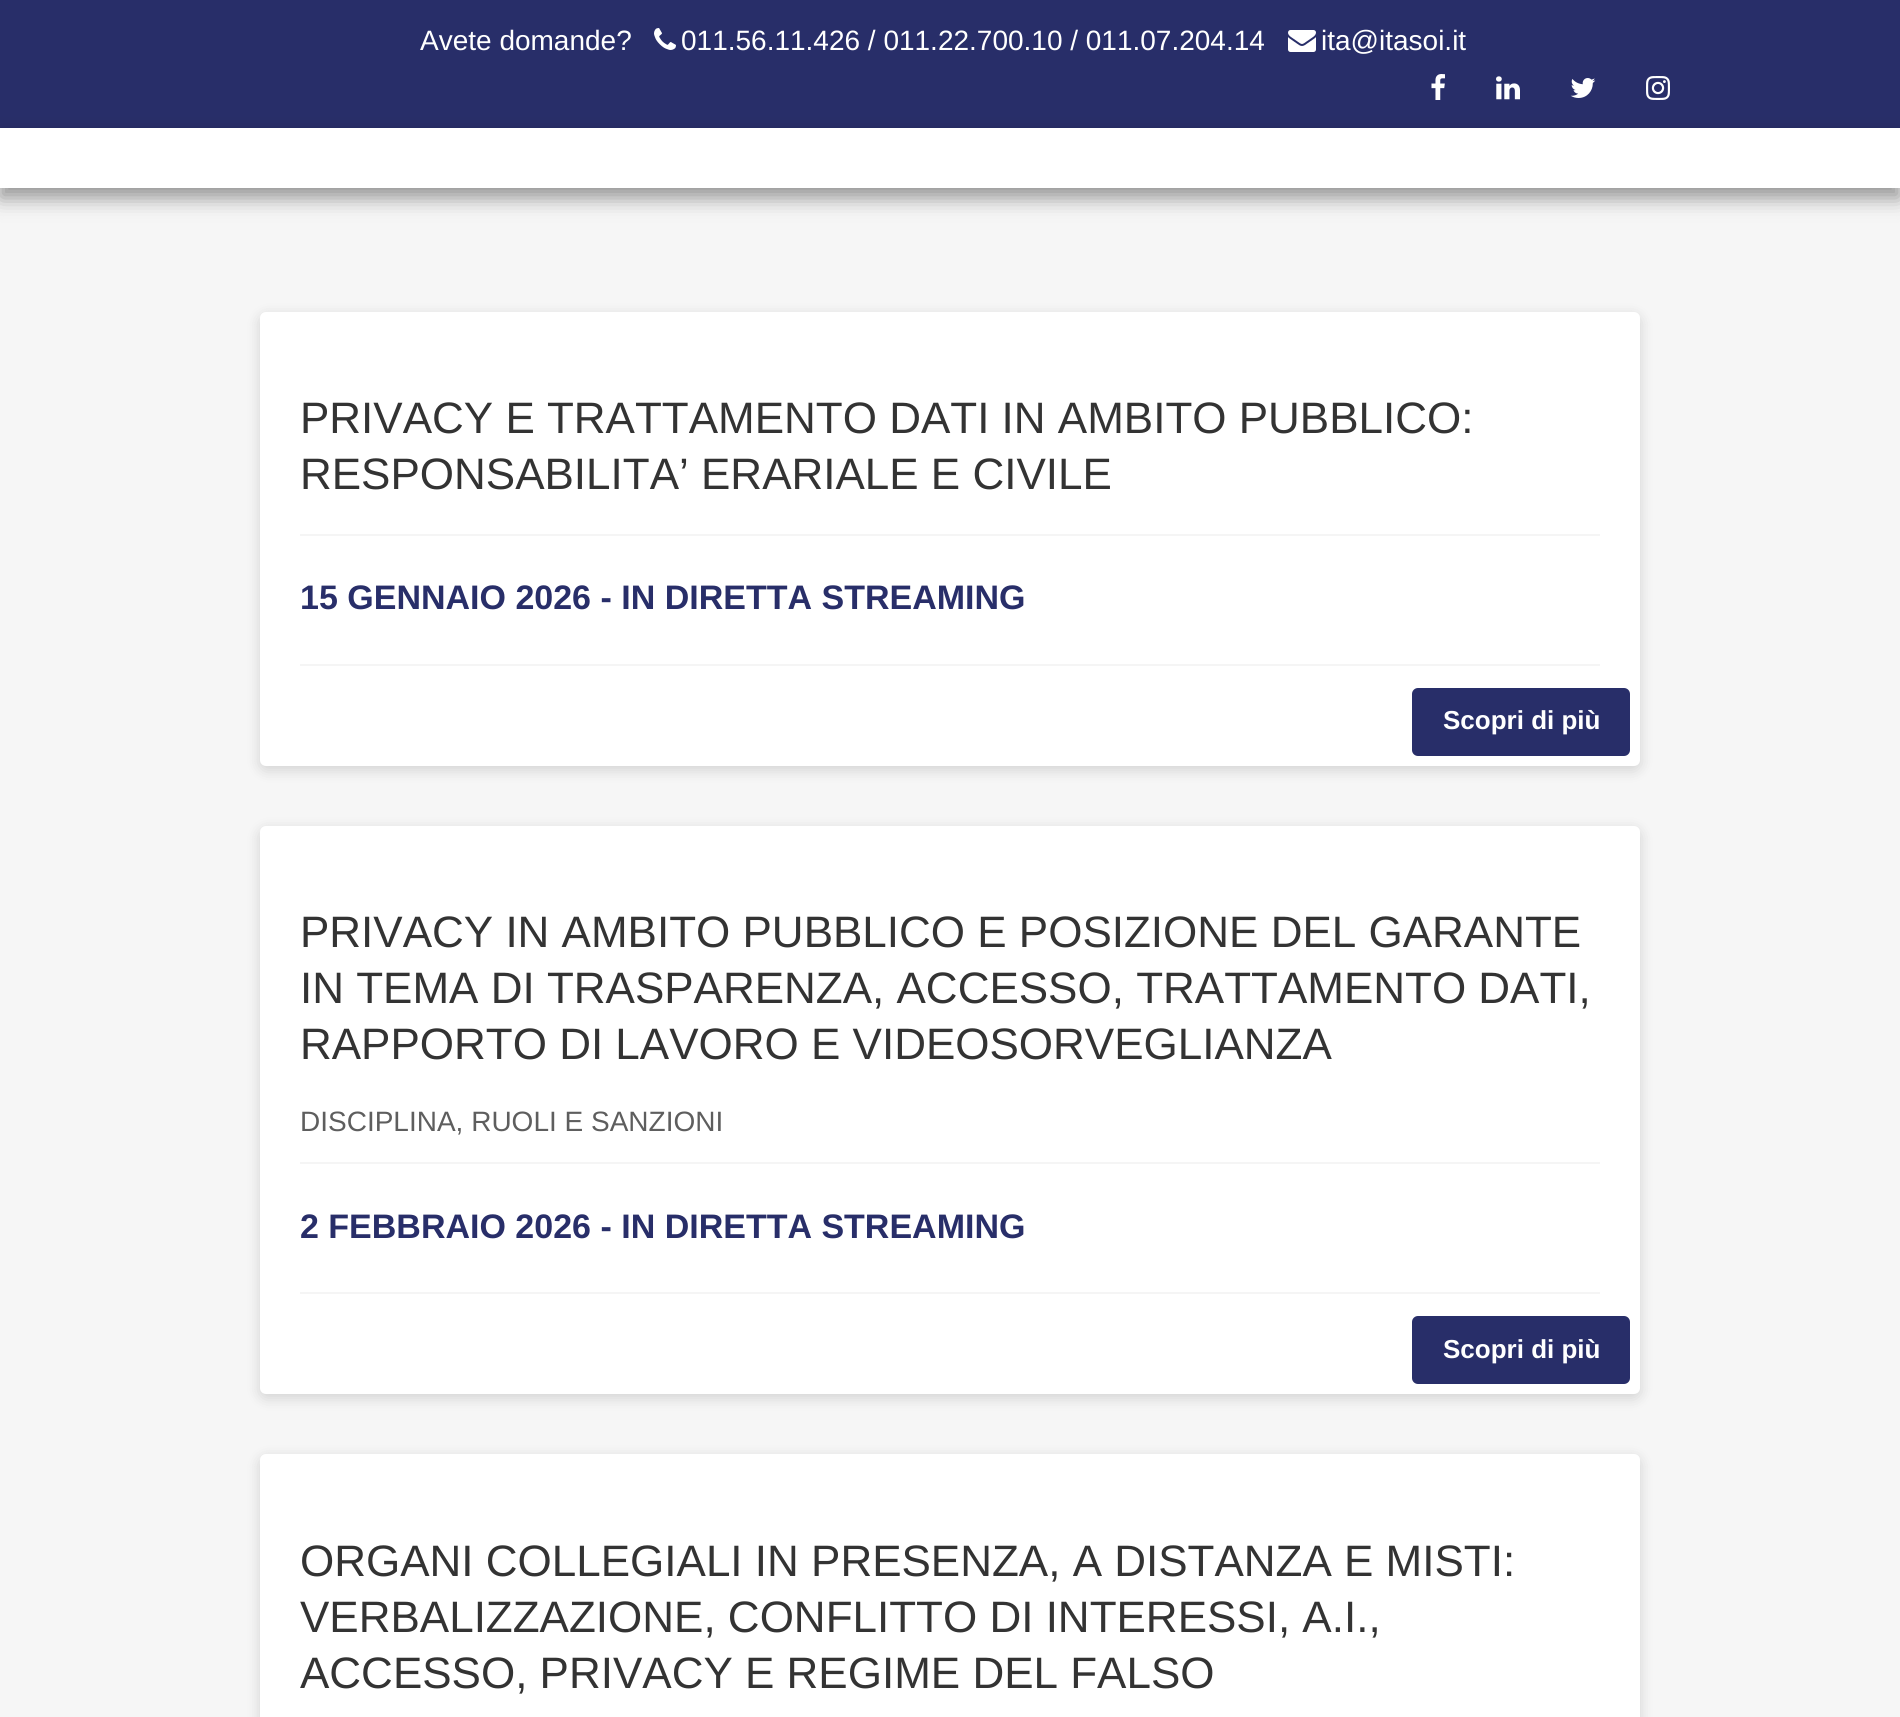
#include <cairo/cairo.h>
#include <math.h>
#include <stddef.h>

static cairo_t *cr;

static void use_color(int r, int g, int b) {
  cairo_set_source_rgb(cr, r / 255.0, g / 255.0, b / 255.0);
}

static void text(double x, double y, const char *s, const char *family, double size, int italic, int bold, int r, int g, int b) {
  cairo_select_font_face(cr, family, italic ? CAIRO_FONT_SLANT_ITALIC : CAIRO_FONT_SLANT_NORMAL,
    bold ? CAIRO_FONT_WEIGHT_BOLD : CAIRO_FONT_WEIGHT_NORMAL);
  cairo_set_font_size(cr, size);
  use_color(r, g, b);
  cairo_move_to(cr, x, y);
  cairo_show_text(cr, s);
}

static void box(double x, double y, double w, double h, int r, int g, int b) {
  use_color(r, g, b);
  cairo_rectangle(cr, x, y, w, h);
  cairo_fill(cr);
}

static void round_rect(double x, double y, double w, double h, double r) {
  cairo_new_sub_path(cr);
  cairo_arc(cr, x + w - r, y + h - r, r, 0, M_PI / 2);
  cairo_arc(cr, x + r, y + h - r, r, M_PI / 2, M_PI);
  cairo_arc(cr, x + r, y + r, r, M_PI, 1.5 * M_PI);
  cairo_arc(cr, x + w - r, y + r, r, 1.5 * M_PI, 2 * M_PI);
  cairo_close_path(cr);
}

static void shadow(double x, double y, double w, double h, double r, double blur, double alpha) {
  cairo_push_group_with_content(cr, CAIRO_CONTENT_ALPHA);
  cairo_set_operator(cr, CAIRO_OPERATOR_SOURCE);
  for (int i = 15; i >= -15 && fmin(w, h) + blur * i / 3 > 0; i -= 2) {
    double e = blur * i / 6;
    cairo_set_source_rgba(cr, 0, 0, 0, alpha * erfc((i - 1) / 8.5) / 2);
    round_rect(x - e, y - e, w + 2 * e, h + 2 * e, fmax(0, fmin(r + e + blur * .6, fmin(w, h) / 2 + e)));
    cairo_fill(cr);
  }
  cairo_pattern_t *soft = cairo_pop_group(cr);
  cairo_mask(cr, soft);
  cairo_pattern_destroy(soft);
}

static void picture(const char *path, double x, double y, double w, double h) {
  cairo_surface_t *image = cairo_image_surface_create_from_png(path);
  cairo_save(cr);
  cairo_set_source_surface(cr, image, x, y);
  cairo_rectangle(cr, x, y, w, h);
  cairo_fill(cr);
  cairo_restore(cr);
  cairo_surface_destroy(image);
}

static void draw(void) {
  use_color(246, 246, 246);
  cairo_paint(cr);
  box(0, 0, 1900, 128, 40, 46, 105);
  picture("img_01.png", 654, 28, 22, 22);
  picture("img_02.png", 1288, 30, 28, 22);
  picture("img_03.png", 1431, 74, 14, 26);
  picture("img_04.png", 1496, 76, 24, 24);
  picture("img_05.png", 1570, 78, 26, 20);
  picture("img_06.png", 1646, 76, 24, 24);
  use_color(0, 0, 0);
  shadow(0, 138, 1900, 60, 0, 10, 0.4);
  box(0, 128, 1900, 60, 255, 255, 255);
  use_color(0, 0, 0);
  shadow(260, 316, 1380, 454, 6, 7, 0.15);
  use_color(255, 255, 255);
  round_rect(260, 312, 1380, 454, 6);
  cairo_fill(cr);
  box(300, 534, 1300, 2, 245, 245, 245);
  box(300, 664, 1300, 2, 245, 245, 245);
  use_color(40, 46, 105);
  round_rect(1413, 689, 216, 66, 5);
  cairo_fill_preserve(cr);
  cairo_stroke(cr);
  use_color(0, 0, 0);
  shadow(260, 830, 1380, 568, 6, 7, 0.15);
  use_color(255, 255, 255);
  round_rect(260, 826, 1380, 568, 6);
  cairo_fill(cr);
  box(300, 1162, 1300, 2, 245, 245, 245);
  box(300, 1292, 1300, 2, 245, 245, 245);
  use_color(40, 46, 105);
  round_rect(1413, 1317, 216, 66, 5);
  cairo_fill_preserve(cr);
  cairo_stroke(cr);
  use_color(0, 0, 0);
  shadow(260, 1458, 1380, 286, 6, 7, 0.15);
  use_color(255, 255, 255);
  round_rect(260, 1454, 1380, 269, 6);
  cairo_fill(cr);
  text(420, 50, "Avete domande?", "Liberation Sans", 28, 0, 0, 255, 255, 255);
  text(681, 50, "011.56.11.426 / 011.22.700.10 / 011.07.204.14", "Liberation Sans", 28, 0, 0, 255, 255, 255);
  text(1321, 50, "ita@itasoi.it", "Liberation Sans", 28, 0, 0, 255, 255, 255);
  text(300, 433, "PRIVACY E TRATTAMENTO DATI IN AMBITO PUBBLICO:", "Liberation Sans", 44, 0, 0, 51, 51, 51);
  text(300, 489, "RESPONSABILITA’ ERARIALE E CIVILE", "Liberation Sans", 44, 0, 0, 51, 51, 51);
  text(300, 609, "15 GENNAIO 2026 - IN DIRETTA STREAMING", "Liberation Sans", 34, 0, 1, 40, 46, 105);
  text(1443, 729, "Scopri di più", "Liberation Sans", 26, 0, 1, 255, 255, 255);
  text(300, 947, "PRIVACY IN AMBITO PUBBLICO E POSIZIONE DEL GARANTE", "Liberation Sans", 44, 0, 0, 51, 51, 51);
  text(300, 1003, "IN TEMA DI TRASPARENZA, ACCESSO, TRATTAMENTO DATI,", "Liberation Sans", 44, 0, 0, 51, 51, 51);
  text(300, 1059, "RAPPORTO DI LAVORO E VIDEOSORVEGLIANZA", "Liberation Sans", 44, 0, 0, 51, 51, 51);
  text(300, 1131, "DISCIPLINA, RUOLI E SANZIONI", "Liberation Sans", 28, 0, 0, 94, 94, 94);
  text(300, 1238, "2 FEBBRAIO 2026 - IN DIRETTA STREAMING", "Liberation Sans", 34, 0, 1, 40, 46, 105);
  text(1443, 1358, "Scopri di più", "Liberation Sans", 26, 0, 1, 255, 255, 255);
  text(300, 1576, "ORGANI COLLEGIALI IN PRESENZA, A DISTANZA E MISTI:", "Liberation Sans", 44, 0, 0, 51, 51, 51);
  text(300, 1632, "VERBALIZZAZIONE, CONFLITTO DI INTERESSI, A.I.,", "Liberation Sans", 44, 0, 0, 51, 51, 51);
  text(300, 1688, "ACCESSO, PRIVACY E REGIME DEL FALSO", "Liberation Sans", 44, 0, 0, 51, 51, 51);
}

int main(void) {
  cairo_surface_t *surface = cairo_image_surface_create(CAIRO_FORMAT_RGB24, 1900, 1717);
  cr = cairo_create(surface);
  cairo_font_options_t *options = cairo_font_options_create();
  cairo_font_options_set_hint_metrics(options, CAIRO_HINT_METRICS_OFF);
  cairo_font_options_set_hint_style(options, CAIRO_HINT_STYLE_NONE);
  cairo_set_font_options(cr, options);
  cairo_set_miter_limit(cr, 4);
  draw();
  cairo_surface_write_to_png(surface, "out.png");
  cairo_font_options_destroy(options);
  cairo_destroy(cr);
  cairo_surface_destroy(surface);
  return 0;
}
